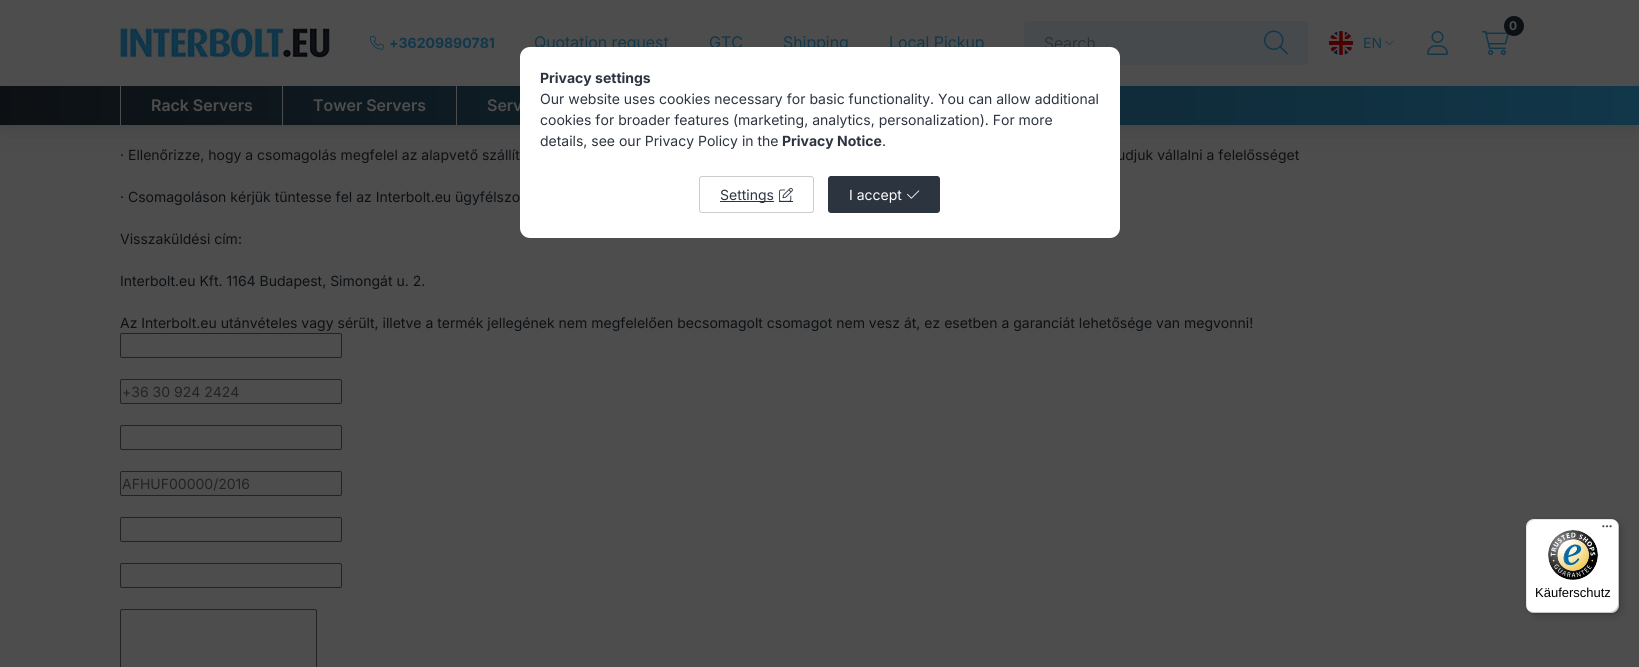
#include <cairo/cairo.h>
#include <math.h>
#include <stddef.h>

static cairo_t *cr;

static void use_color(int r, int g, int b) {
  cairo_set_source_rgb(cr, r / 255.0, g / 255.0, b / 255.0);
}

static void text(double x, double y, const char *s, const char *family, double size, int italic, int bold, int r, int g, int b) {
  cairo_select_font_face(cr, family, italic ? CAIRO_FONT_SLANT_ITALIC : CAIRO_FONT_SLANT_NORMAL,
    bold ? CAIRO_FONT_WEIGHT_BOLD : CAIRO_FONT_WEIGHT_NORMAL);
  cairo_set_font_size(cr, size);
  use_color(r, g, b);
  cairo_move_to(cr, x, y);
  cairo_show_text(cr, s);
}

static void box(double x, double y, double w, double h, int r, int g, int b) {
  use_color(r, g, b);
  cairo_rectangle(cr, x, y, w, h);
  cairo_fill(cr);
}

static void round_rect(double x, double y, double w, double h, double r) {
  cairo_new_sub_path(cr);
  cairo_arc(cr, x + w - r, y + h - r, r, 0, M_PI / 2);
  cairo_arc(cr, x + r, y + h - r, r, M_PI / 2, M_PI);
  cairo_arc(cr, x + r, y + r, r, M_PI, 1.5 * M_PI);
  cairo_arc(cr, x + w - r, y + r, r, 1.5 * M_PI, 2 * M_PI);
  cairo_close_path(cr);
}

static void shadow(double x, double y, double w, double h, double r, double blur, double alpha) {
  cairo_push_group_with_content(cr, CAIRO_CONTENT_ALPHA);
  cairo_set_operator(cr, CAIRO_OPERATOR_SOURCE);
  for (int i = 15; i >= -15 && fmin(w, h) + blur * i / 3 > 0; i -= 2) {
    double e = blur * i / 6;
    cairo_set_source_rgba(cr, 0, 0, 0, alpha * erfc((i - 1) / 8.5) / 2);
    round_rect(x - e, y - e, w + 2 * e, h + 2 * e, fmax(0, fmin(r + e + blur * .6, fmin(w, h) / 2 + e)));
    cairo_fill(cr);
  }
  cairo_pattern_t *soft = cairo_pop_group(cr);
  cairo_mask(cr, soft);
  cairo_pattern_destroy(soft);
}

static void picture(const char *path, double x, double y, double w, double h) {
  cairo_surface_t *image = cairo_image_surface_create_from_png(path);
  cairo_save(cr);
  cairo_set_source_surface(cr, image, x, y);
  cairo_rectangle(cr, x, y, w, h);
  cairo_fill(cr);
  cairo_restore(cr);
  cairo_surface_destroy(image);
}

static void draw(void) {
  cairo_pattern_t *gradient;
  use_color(77, 77, 77);
  cairo_paint(cr);
  use_color(13, 16, 19);
  shadow(0, 0, 1639, 125, 0, 15, 0.2);
  box(0, 0, 1639, 86, 77, 77, 77);
  picture("img_01.png", 120, 28, 210, 30);
  picture("img_02.png", 370, 35, 14, 15);
  picture("img_03.png", 1482, 31, 27, 24);
  use_color(13, 16, 19);
  cairo_arc(cr, 1514, 26, 10, 0, 2 * M_PI);
  cairo_fill(cr);
  use_color(71, 74, 76);
  round_rect(1024, 21, 284, 44, 3);
  cairo_fill(cr);
  picture("img_04.png", 1264, 30, 24, 25);
  picture("img_05.png", 1329, 31, 24, 24);
  picture("img_06.png", 1385, 40, 9, 5);
  picture("img_07.png", 1427, 31, 21, 24);
  gradient = cairo_pattern_create_linear(0, 334, 1639, 333);
  cairo_pattern_add_color_stop_rgba(gradient, 0, 0.051, 0.063, 0.075, 1);
  cairo_pattern_add_color_stop_rgba(gradient, 1, 0.067, 0.216, 0.29, 1);
  cairo_set_source(cr, gradient);
  cairo_pattern_destroy(gradient);
  cairo_rectangle(cr, 0, 86, 1639, 39);
  cairo_fill(cr);
  box(282, 86, 1, 39, 77, 77, 77);
  box(120, 86, 1, 39, 77, 77, 77);
  box(456, 86, 1, 39, 77, 77, 77);
  round_rect(120.5, 333.5, 221, 24, 1.5);
  use_color(35, 35, 35);
  cairo_set_line_width(cr, 1);
  cairo_stroke(cr);
  round_rect(120.5, 379.5, 221, 24, 1.5);
  cairo_stroke(cr);
  round_rect(120.5, 425.5, 221, 24, 1.5);
  cairo_stroke(cr);
  round_rect(120.5, 471.5, 221, 24, 1.5);
  cairo_stroke(cr);
  round_rect(120.5, 517.5, 221, 24, 1.5);
  cairo_stroke(cr);
  round_rect(120.5, 563.5, 221, 24, 1.5);
  cairo_stroke(cr);
  round_rect(120.5, 609.5, 196, 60, 1.5);
  cairo_stroke(cr);
  use_color(0, 0, 0);
  shadow(1529, 522, 93, 94, 8, 4, 0.15);
  shadow(1527, 520, 93, 94, 8, 1, 0.15);
  use_color(255, 255, 255);
  round_rect(1526, 519, 93, 94, 8);
  cairo_fill(cr);
  cairo_set_source_rgba(cr, 0, 0, 0, 0.1);
  cairo_new_path(cr);
  cairo_move_to(cr, 1535, 520);
  cairo_line_to(cr, 1612, 520);
  cairo_curve_to(cr, 1614, 520, 1616, 521, 1618, 523);
  cairo_curve_to(cr, 1616, 521, 1614, 519, 1611, 519);
  cairo_line_to(cr, 1534, 519);
  cairo_curve_to(cr, 1530, 519, 1526, 523, 1526, 527);
  cairo_line_to(cr, 1526, 605);
  cairo_curve_to(cr, 1526, 608, 1528, 610, 1530, 612);
  cairo_curve_to(cr, 1528, 610, 1527, 608, 1527, 606);
  cairo_line_to(cr, 1527, 528);
  cairo_curve_to(cr, 1527, 524, 1531, 520, 1535, 520);
  cairo_close_path(cr);
  cairo_fill(cr);
  cairo_set_source_rgba(cr, 0, 0, 0, 0.2);
  cairo_new_path(cr);
  cairo_move_to(cr, 1527, 609);
  cairo_curve_to(cr, 1529, 611, 1531, 613, 1534, 613);
  cairo_line_to(cr, 1611, 613);
  cairo_curve_to(cr, 1615, 613, 1619, 609, 1619, 605);
  cairo_line_to(cr, 1619, 527);
  cairo_curve_to(cr, 1619, 524, 1617, 522, 1615, 520);
  cairo_curve_to(cr, 1617, 522, 1618, 524, 1618, 526);
  cairo_line_to(cr, 1618, 604);
  cairo_curve_to(cr, 1618, 608, 1614, 612, 1610, 612);
  cairo_line_to(cr, 1533, 612);
  cairo_curve_to(cr, 1531, 612, 1529, 611, 1527, 609);
  cairo_close_path(cr);
  cairo_fill(cr);
  cairo_set_source_rgba(cr, 0.196, 0.196, 0.196, 0.2);
  cairo_new_path(cr);
  cairo_move_to(cr, 1528, 610);
  cairo_curve_to(cr, 1529, 612, 1532, 613, 1534, 613);
  cairo_line_to(cr, 1611, 613);
  cairo_curve_to(cr, 1615, 613, 1619, 609, 1619, 605);
  cairo_line_to(cr, 1619, 527);
  cairo_curve_to(cr, 1619, 525, 1618, 522, 1616, 521);
  cairo_curve_to(cr, 1617, 522, 1618, 524, 1618, 526);
  cairo_line_to(cr, 1618, 604);
  cairo_curve_to(cr, 1618, 609, 1615, 612, 1610, 612);
  cairo_line_to(cr, 1533, 612);
  cairo_curve_to(cr, 1531, 612, 1529, 611, 1528, 610);
  cairo_close_path(cr);
  cairo_fill(cr);
  cairo_set_source_rgba(cr, 1, 1, 1, 0.3);
  cairo_new_path(cr);
  cairo_move_to(cr, 1526, 604);
  cairo_line_to(cr, 1526, 605);
  cairo_curve_to(cr, 1526, 609, 1530, 613, 1534, 613);
  cairo_line_to(cr, 1611, 613);
  cairo_curve_to(cr, 1615, 613, 1619, 609, 1619, 605);
  cairo_line_to(cr, 1619, 527);
  cairo_curve_to(cr, 1619, 525, 1618, 522, 1616, 521);
  cairo_curve_to(cr, 1617, 522, 1618, 524, 1618, 526);
  cairo_line_to(cr, 1618, 604);
  cairo_curve_to(cr, 1618, 609, 1615, 612, 1610, 612);
  cairo_line_to(cr, 1534, 612);
  cairo_curve_to(cr, 1529, 612, 1526, 609, 1526, 604);
  cairo_close_path(cr);
  cairo_fill(cr);
  picture("img_10.png", 1602, 525, 10, 3);
  picture("img_11.png", 1548, 530, 50, 50);
  text(389, 48, "+36209890781", "Inter", 14, 0, 1, 17, 55, 74);
  text(534, 48, "Quotation request", "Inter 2", 16, 0, 0, 17, 55, 74);
  text(709, 48, "GTC", "Inter 2", 16, 0, 0, 17, 55, 74);
  text(783, 48, "Shipping", "Inter 2", 16, 0, 0, 17, 55, 74);
  text(889, 48, "Local Pickup", "Inter 2", 16, 0, 0, 17, 55, 74);
  text(1509, 30, "0", "Inter", 12, 0, 1, 77, 77, 77);
  text(1044, 49, "Search", "Inter Light", 16, 0, 0, 41, 41, 41);
  text(1363, 48, "EN", "Inter", 14, 0, 0, 17, 55, 74);
  text(151, 111, "Rack Servers", "Inter SemiBold", 16, 0, 0, 77, 77, 77);
  text(313, 111, "Tower Servers", "Inter SemiBold", 16, 0, 0, 77, 77, 77);
  text(487, 111, "Serv", "Inter SemiBold", 16, 0, 0, 77, 77, 77);
  text(120, 160, "· Ellenőrizze, hogy a csomagolás megfelel az alapvető szállít", "Inter", 14, 0, 0, 13, 16, 19);
  text(1117, 160, "udjuk vállalni a felelősséget", "Inter", 14, 0, 0, 13, 16, 19);
  text(120, 202, "· Csomagoláson kérjük tüntesse fel az Interbolt.eu ügyfélszo", "Inter", 14, 0, 0, 13, 16, 19);
  text(120, 244, "Visszaküldési cím:", "Inter", 14, 0, 0, 13, 16, 19);
  text(120, 286, "Interbolt.eu Kft. 1164 Budapest, Simongát u. 2.", "Inter", 14, 0, 0, 13, 16, 19);
  text(120, 328, "Az Interbolt.eu utánvételes vagy sérült, illetve a termék jellegének nem megfelelően becsomagolt csomagot nem vesz át, ez esetben a garanciát lehetősége van megvonni!", "Inter", 14, 0, 0, 13, 16, 19);
  text(122, 397, "+36 30 924 2424", "Inter", 14, 0, 0, 35, 35, 35);
  text(122, 489, "AFHUF00000/2016", "Inter", 14, 0, 0, 35, 35, 35);
  use_color(255, 255, 255);
  round_rect(520, 47, 600, 191, 10);
  cairo_fill(cr);
  text(540, 83, "Privacy settings", "Inter", 14, 0, 1, 44, 52, 64);
  text(540, 104, "Our website uses cookies necessary for basic functionality. You can allow additional", "Inter", 14, 0, 0, 44, 52, 64);
  text(540, 125, "cookies for broader features (marketing, analytics, personalization). For more", "Inter", 14, 0, 0, 44, 52, 64);
  text(540, 146, "details, see our Privacy Policy in the", "Inter", 14, 0, 0, 44, 52, 64);
  text(782, 146, "Privacy Notice", "Inter", 14, 0, 1, 44, 52, 64);
  text(882, 146, ".", "Inter", 14, 0, 0, 44, 52, 64);
  round_rect(699.5, 176.5, 114, 36, 2.5);
  use_color(204, 204, 204);
  cairo_stroke(cr);
  box(720, 201, 54, 1, 44, 52, 64);
  text(720, 200, "Settings", "Inter", 14, 0, 0, 44, 52, 64);
  picture("img_08.png", 779, 187, 14, 14);
  box(779, 201, 14, 1, 44, 52, 64);
  round_rect(828.5, 176.5, 111, 36, 2.5);
  cairo_fill_preserve(cr);
  cairo_stroke(cr);
  text(849, 200, "I accept", "Inter", 14, 0, 0, 255, 255, 255);
  picture("img_09.png", 907, 190, 13, 9);
  text(1535, 597, "Käuferschutz", "Liberation Sans", 13, 0, 0, 0, 0, 0);
}

int main(void) {
  cairo_surface_t *surface = cairo_image_surface_create(CAIRO_FORMAT_RGB24, 1639, 667);
  cr = cairo_create(surface);
  cairo_font_options_t *options = cairo_font_options_create();
  cairo_font_options_set_hint_metrics(options, CAIRO_HINT_METRICS_OFF);
  cairo_font_options_set_hint_style(options, CAIRO_HINT_STYLE_NONE);
  cairo_set_font_options(cr, options);
  cairo_set_miter_limit(cr, 4);
  draw();
  cairo_surface_write_to_png(surface, "out.png");
  cairo_font_options_destroy(options);
  cairo_destroy(cr);
  cairo_surface_destroy(surface);
  return 0;
}
